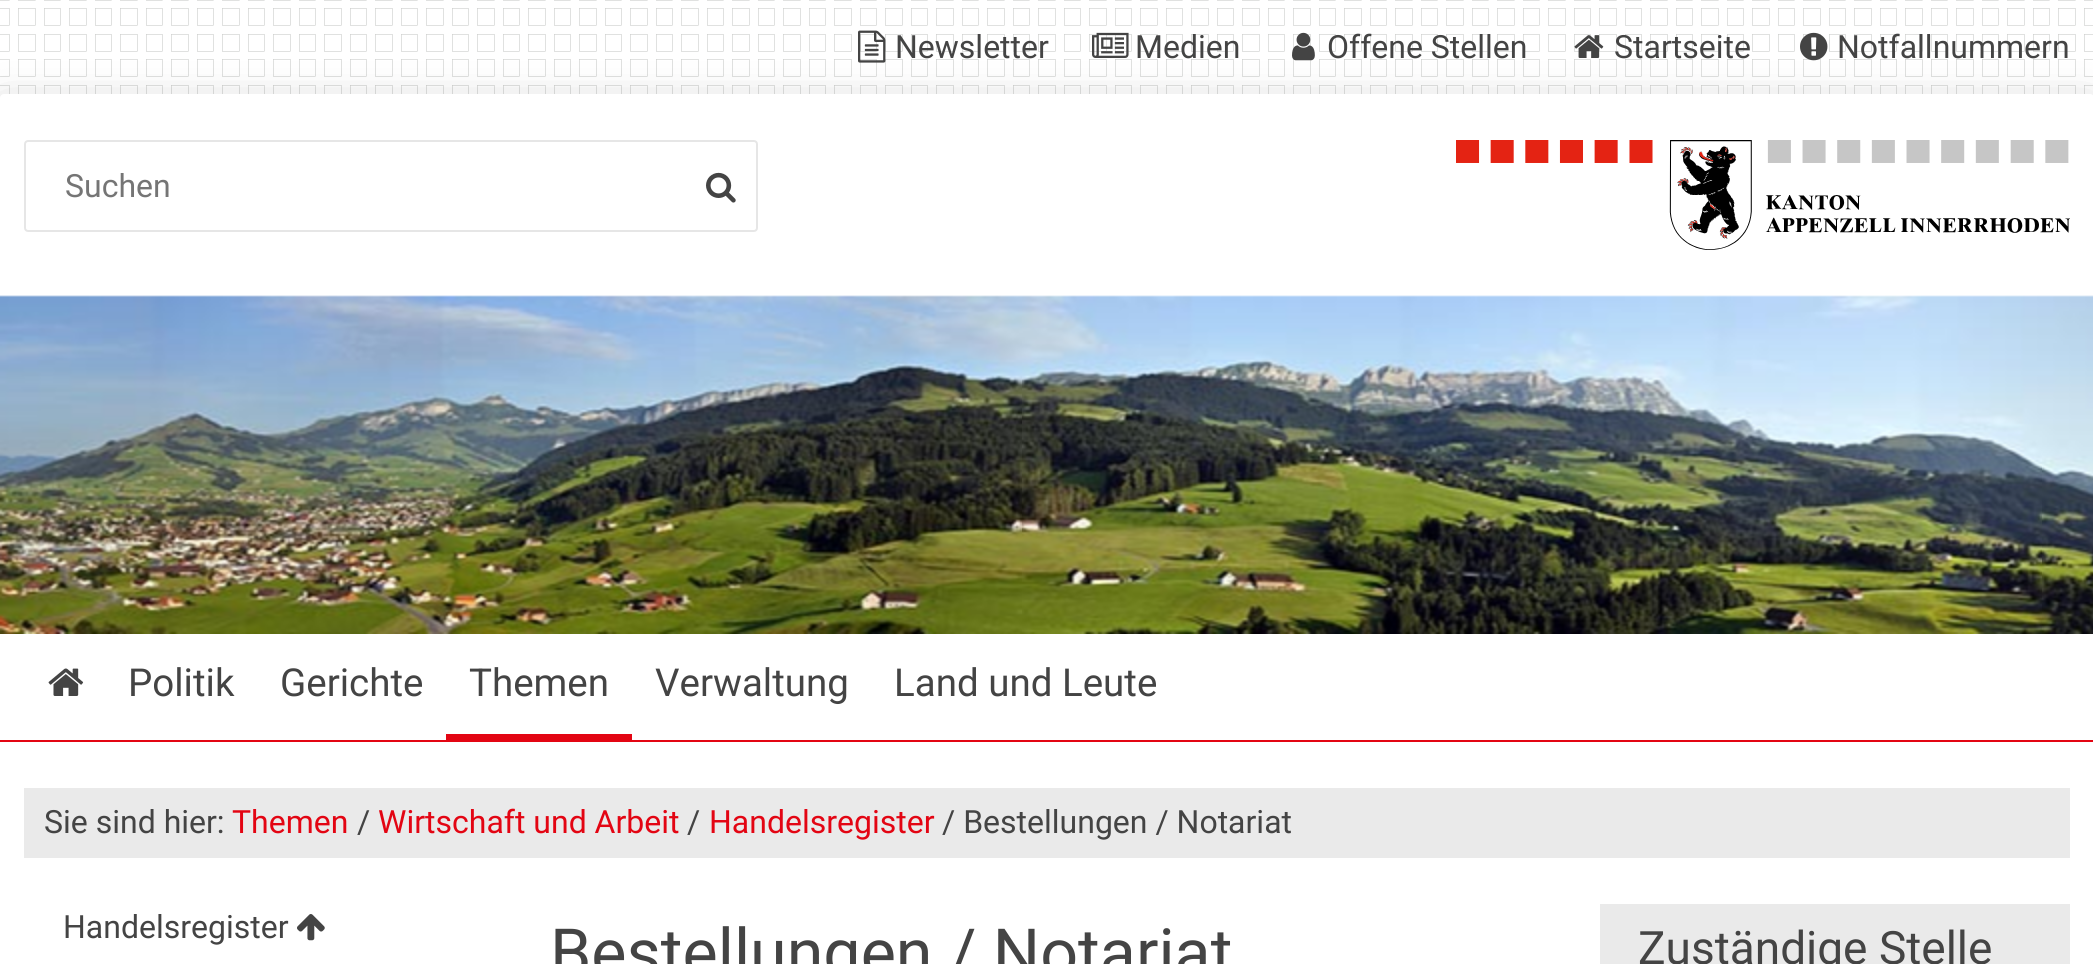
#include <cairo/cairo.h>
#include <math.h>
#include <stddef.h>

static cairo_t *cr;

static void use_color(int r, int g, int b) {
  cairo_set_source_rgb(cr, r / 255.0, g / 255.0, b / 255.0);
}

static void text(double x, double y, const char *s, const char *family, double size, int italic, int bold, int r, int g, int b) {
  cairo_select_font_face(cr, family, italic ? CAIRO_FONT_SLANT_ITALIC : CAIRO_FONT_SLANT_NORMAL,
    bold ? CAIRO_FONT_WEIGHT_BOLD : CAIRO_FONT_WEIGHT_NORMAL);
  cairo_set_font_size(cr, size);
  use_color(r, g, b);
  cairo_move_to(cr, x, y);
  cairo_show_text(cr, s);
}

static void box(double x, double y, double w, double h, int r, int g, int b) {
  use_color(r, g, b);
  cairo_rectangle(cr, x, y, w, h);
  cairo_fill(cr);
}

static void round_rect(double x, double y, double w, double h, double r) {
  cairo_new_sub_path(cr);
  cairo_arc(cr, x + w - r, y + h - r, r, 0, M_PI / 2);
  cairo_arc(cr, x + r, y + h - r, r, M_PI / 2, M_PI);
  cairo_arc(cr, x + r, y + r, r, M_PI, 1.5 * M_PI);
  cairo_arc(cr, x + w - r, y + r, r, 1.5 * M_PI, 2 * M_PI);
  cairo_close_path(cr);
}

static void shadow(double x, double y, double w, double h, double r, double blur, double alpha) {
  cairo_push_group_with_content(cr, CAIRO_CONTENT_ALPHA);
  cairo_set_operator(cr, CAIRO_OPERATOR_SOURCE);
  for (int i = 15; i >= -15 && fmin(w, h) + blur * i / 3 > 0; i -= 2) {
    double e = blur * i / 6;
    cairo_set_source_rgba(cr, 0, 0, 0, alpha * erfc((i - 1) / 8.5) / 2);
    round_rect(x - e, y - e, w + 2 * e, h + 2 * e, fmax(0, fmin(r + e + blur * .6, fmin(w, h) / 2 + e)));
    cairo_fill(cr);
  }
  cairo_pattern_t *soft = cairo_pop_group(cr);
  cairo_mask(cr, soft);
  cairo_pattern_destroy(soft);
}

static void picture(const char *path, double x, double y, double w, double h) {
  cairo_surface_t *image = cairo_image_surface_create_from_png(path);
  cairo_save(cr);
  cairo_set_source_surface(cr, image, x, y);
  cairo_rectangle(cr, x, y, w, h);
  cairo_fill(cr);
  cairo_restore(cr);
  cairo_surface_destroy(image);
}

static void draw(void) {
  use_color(255, 255, 255);
  cairo_paint(cr);
  picture("img_01.png", 0, 0, 2093, 94);
  picture("img_02.png", 858, 30, 28, 33);
  picture("img_03.png", 1092, 32, 37, 26);
  picture("img_04.png", 1292, 32, 23, 29);
  picture("img_05.png", 1574, 35, 30, 23);
  picture("img_06.png", 1800, 32, 28, 29);
  use_color(0, 0, 0);
  shadow(0, 104, 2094, 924, 4, 20, 0.2);
  use_color(255, 255, 255);
  round_rect(0, 94, 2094, 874, 4);
  cairo_fill(cr);
  round_rect(25, 141, 732, 90, 3);
  use_color(230, 230, 230);
  cairo_stroke(cr);
  picture("img_07.png", 706, 172, 30, 31);
  picture("img_08.png", 1456, 140, 614, 110);
  box(0, 740, 2093, 2, 227, 5, 19);
  picture("img_09.png", 0, 295, 2093, 339);
  picture("img_10.png", 48, 668, 36, 28);
  box(446, 734, 186, 6, 227, 5, 19);
  box(24, 788, 2046, 70, 234, 234, 234);
  picture("img_11.png", 297, 914, 28, 27);
  box(1600, 904, 470, 60, 234, 234, 234);
  text(895, 58, "Newsletter", "Roboto", 32, 0, 0, 68, 68, 68);
  text(1135, 58, "Medien", "Roboto", 32, 0, 0, 68, 68, 68);
  text(1327, 58, "Offene Stellen", "Roboto", 32, 0, 0, 68, 68, 68);
  text(1614, 58, "Startseite", "Roboto", 32, 0, 0, 68, 68, 68);
  text(1837, 58, "Notfallnummern", "Roboto", 32, 0, 0, 68, 68, 68);
  text(65, 197, "Suchen", "Roboto", 32, 0, 0, 117, 117, 117);
  text(128, 696, "Politik", "Roboto", 38.5, 0, 0, 68, 68, 68);
  text(280, 696, "Gerichte", "Roboto", 38.5, 0, 0, 68, 68, 68);
  text(469, 696, "Themen", "Roboto", 38.5, 0, 0, 68, 68, 68);
  text(655, 696, "Verwaltung", "Roboto", 38.5, 0, 0, 68, 68, 68);
  text(894, 696, "Land und Leute", "Roboto", 38.5, 0, 0, 68, 68, 68);
  text(44, 833, "Sie sind hier:", "Roboto", 32, 0, 0, 68, 68, 68);
  text(232, 833, "Themen", "Roboto", 32, 0, 0, 227, 5, 19);
  text(357, 833, "/", "Roboto", 32, 0, 0, 68, 68, 68);
  text(378, 833, "Wirtschaft und Arbeit", "Roboto", 32, 0, 0, 227, 5, 19);
  text(687, 833, "/", "Roboto", 32, 0, 0, 68, 68, 68);
  text(709, 833, "Handelsregister", "Roboto", 32, 0, 0, 227, 5, 19);
  text(942, 833, "/ Bestellungen / Notariat", "Roboto", 32, 0, 0, 68, 68, 68);
  text(63, 938, "Handelsregister", "Roboto", 32, 0, 0, 68, 68, 68);
  text(550, 976, "Bestellungen / Notariat", "Roboto", 66.4, 0, 0, 68, 68, 68);
  text(1638, 964, "Zuständige Stelle", "Roboto", 46, 0, 0, 68, 68, 68);
}

int main(void) {
  cairo_surface_t *surface = cairo_image_surface_create(CAIRO_FORMAT_RGB24, 2093, 964);
  cr = cairo_create(surface);
  cairo_font_options_t *options = cairo_font_options_create();
  cairo_font_options_set_hint_metrics(options, CAIRO_HINT_METRICS_OFF);
  cairo_font_options_set_hint_style(options, CAIRO_HINT_STYLE_NONE);
  cairo_set_font_options(cr, options);
  cairo_set_miter_limit(cr, 4);
  draw();
  cairo_surface_write_to_png(surface, "out.png");
  cairo_font_options_destroy(options);
  cairo_destroy(cr);
  cairo_surface_destroy(surface);
  return 0;
}
